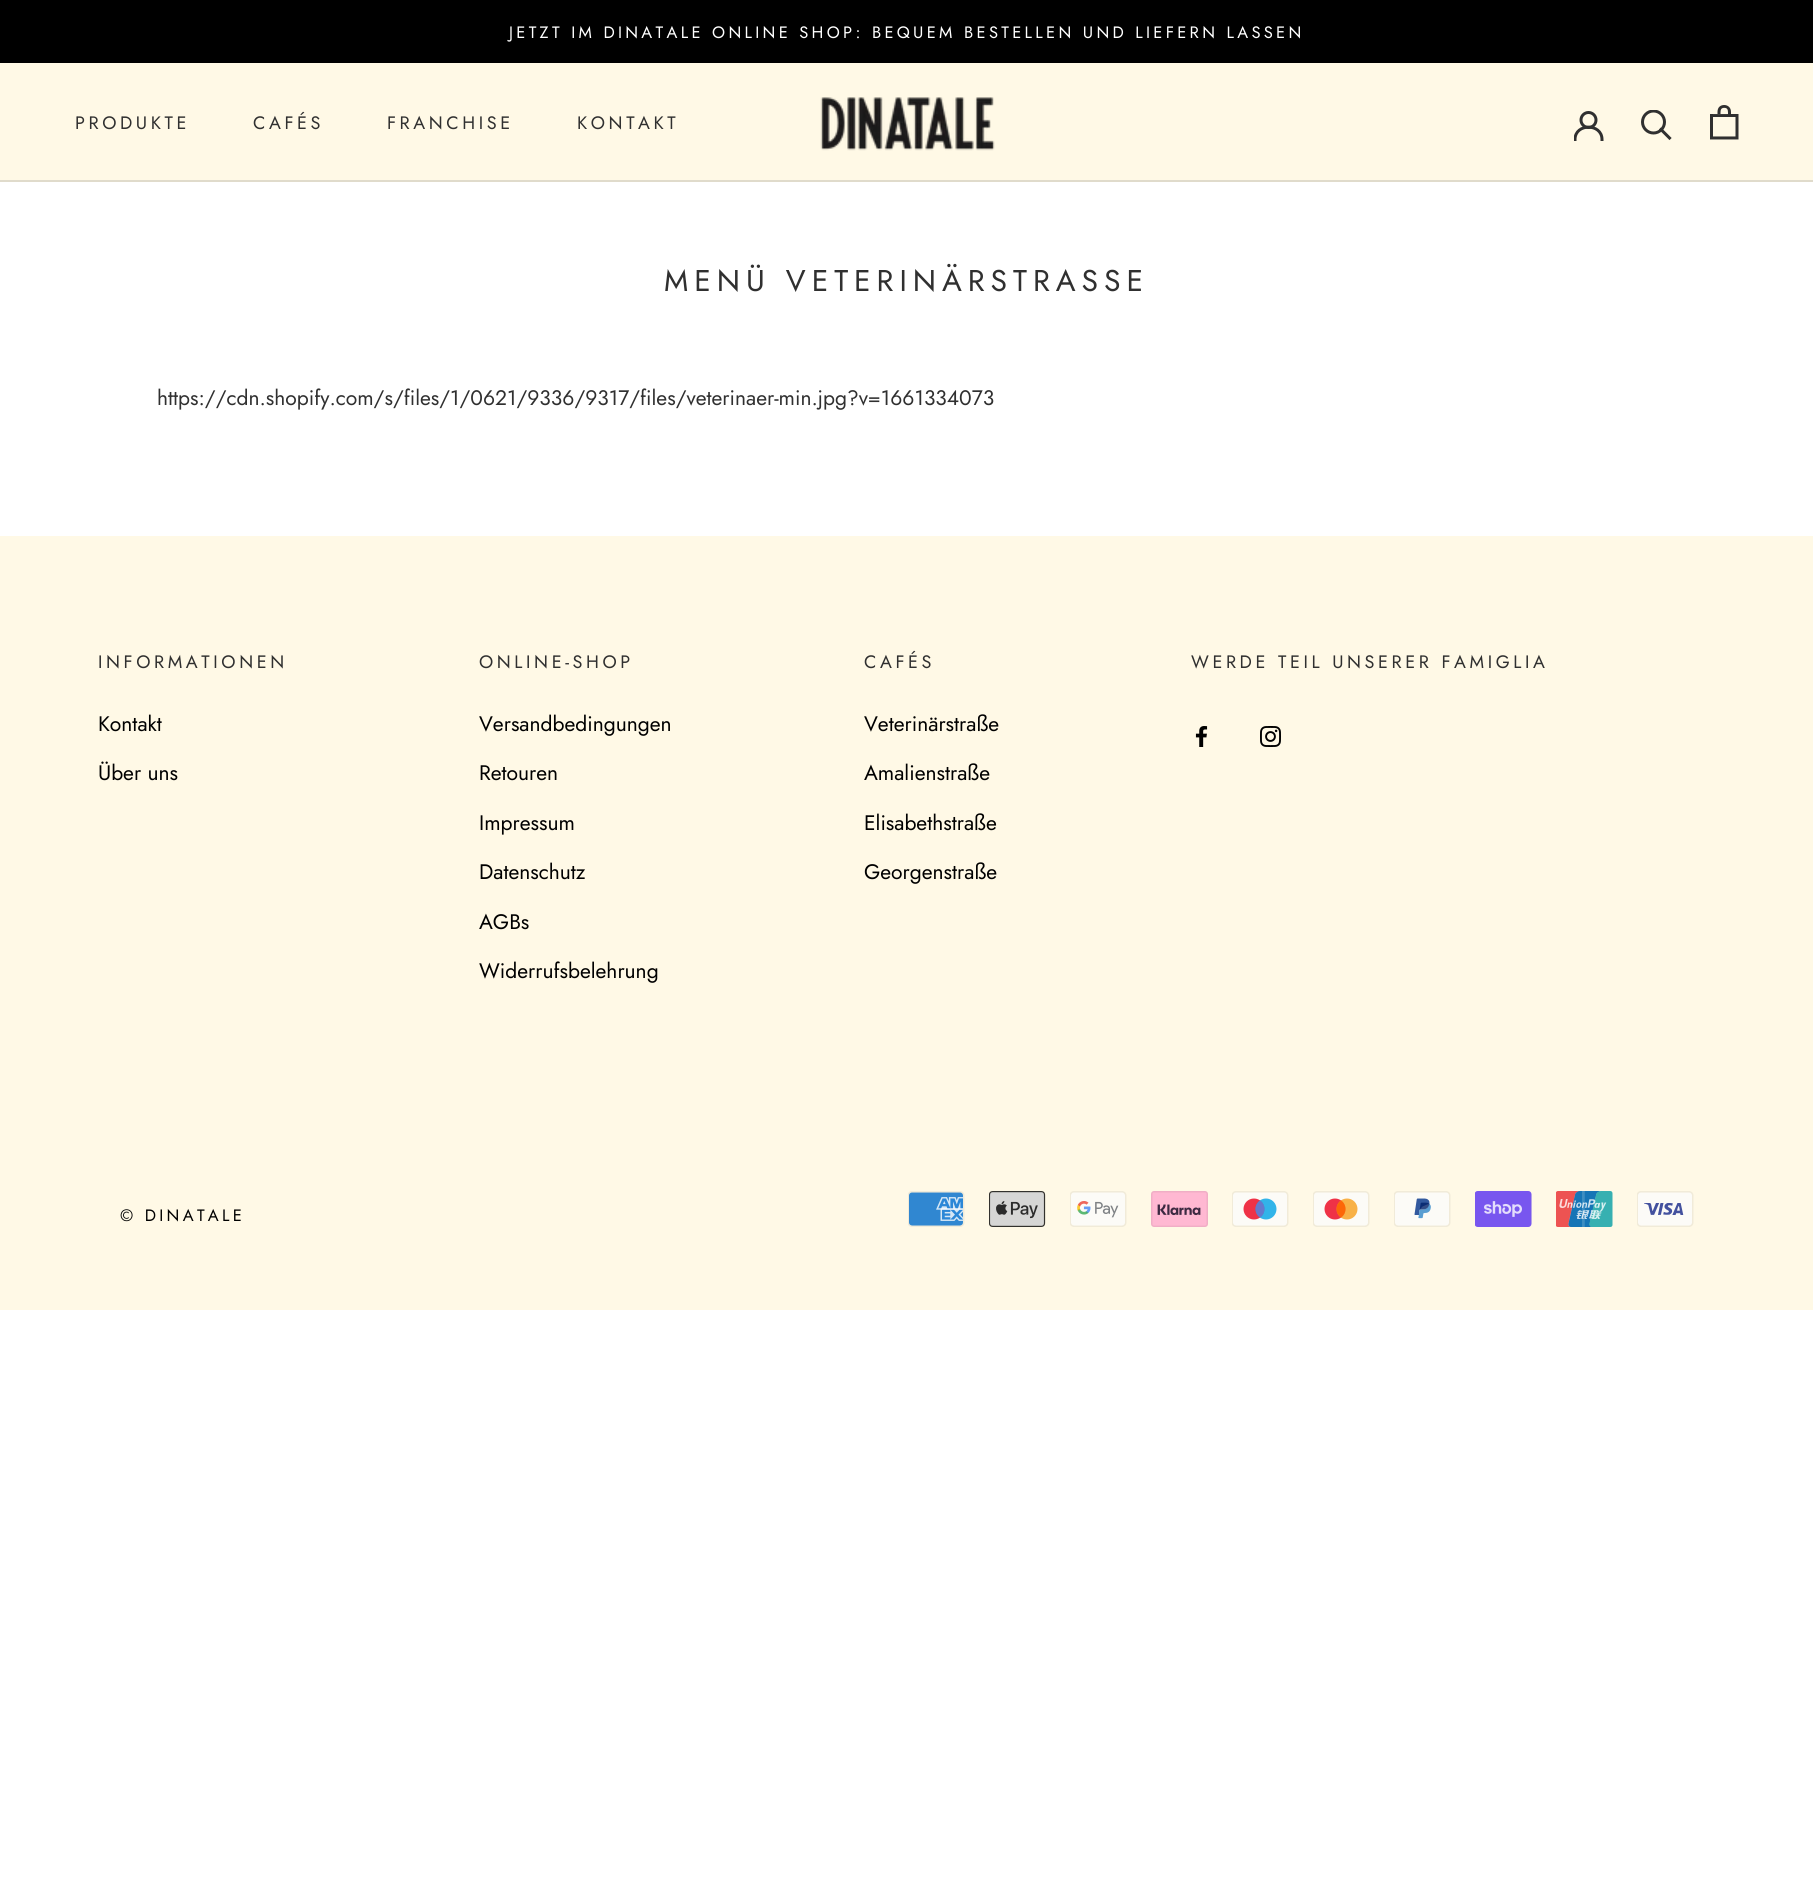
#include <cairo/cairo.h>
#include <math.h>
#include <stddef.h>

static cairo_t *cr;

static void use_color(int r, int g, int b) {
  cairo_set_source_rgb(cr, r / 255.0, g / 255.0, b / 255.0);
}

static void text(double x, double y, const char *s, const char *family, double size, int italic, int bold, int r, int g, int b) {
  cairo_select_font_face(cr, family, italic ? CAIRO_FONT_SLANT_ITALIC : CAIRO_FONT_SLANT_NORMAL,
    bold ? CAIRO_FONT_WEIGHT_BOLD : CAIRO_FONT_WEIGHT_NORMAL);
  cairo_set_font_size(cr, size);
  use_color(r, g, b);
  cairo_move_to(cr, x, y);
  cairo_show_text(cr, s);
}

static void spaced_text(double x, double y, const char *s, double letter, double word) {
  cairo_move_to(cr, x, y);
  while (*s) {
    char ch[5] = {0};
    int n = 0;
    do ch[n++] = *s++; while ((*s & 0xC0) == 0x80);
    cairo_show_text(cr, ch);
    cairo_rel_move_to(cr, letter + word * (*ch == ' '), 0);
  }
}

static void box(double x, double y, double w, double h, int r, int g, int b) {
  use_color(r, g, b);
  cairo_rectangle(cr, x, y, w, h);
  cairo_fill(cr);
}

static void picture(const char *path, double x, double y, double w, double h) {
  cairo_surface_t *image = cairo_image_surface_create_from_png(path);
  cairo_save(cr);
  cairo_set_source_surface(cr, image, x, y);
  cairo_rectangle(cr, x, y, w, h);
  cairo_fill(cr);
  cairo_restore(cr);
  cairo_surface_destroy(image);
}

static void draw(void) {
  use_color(255, 255, 255);
  cairo_paint(cr);
  box(0, 0, 1813, 63, 0, 0, 0);
  box(0, 63, 1813, 117, 255, 249, 230);
  box(0, 180, 1813, 2, 224, 219, 203);
  picture("img_01.png", 820, 97, 175, 54);
  cairo_save(cr);
  cairo_rectangle(cr, 1574, 111, 30, 30);
  cairo_clip(cr);
  cairo_new_path(cr);
  cairo_move_to(cr, 1575, 139.5);
  cairo_curve_to(cr, 1575, 123, 1602, 123, 1602, 139.5);
  use_color(48, 48, 48);
  cairo_set_line_width(cr, 3);
  cairo_set_line_cap(cr, CAIRO_LINE_CAP_SQUARE);
  cairo_stroke(cr);
  cairo_restore(cr);
  cairo_arc(cr, 1588.5, 120, 7.5, 0, 2 * M_PI);
  use_color(48, 48, 48);
  cairo_set_line_width(cr, 3);
  cairo_stroke(cr);
  cairo_new_path(cr);
  cairo_move_to(cr, 1669.5, 138);
  cairo_line_to(cr, 1661, 129.5);
  cairo_set_line_cap(cr, CAIRO_LINE_CAP_SQUARE);
  cairo_stroke(cr);
  cairo_save(cr);
  cairo_rectangle(cr, 1641, 110, 32, 31);
  cairo_clip(cr);
  cairo_arc(cr, 1653.5, 122, 11, 0, 2 * M_PI);
  cairo_set_line_cap(cr, CAIRO_LINE_CAP_BUTT);
  cairo_stroke(cr);
  cairo_restore(cr);
  picture("img_02.png", 1710, 105, 29, 35);
  box(0, 536, 1813, 774, 255, 249, 230);
  picture("img_03.png", 1195, 726, 13, 21);
  picture("img_04.png", 1260, 726, 21, 21);
  picture("img_05.png", 908, 1191, 57, 36);
  picture("img_06.png", 989, 1191, 57, 36);
  picture("img_07.png", 1070, 1191, 57, 36);
  picture("img_08.png", 1151, 1191, 57, 36);
  picture("img_09.png", 1232, 1191, 57, 36);
  picture("img_10.png", 1313, 1191, 57, 36);
  picture("img_11.png", 1394, 1191, 57, 36);
  picture("img_12.png", 1475, 1191, 57, 36);
  picture("img_13.png", 1556, 1191, 57, 36);
  picture("img_14.png", 1637, 1191, 57, 36);
  cairo_select_font_face(cr, "Jost", CAIRO_FONT_SLANT_NORMAL, CAIRO_FONT_WEIGHT_NORMAL);
  cairo_set_font_size(cr, 16.5);
  use_color(255, 255, 255);
  spaced_text(509, 38, "JETZT IM DINATALE ONLINE SHOP: BEQUEM BESTELLEN UND LIEFERN LASSEN", 3.3, 0);
  cairo_set_font_size(cr, 18);
  use_color(48, 48, 48);
  spaced_text(75, 129, "PRODUKTE", 3.6, 0);
  spaced_text(253, 129, "CAFÉS", 3.6, 0);
  spaced_text(387, 129, "FRANCHISE", 3.6, 0);
  spaced_text(577, 129, "KONTAKT", 3.6, 0);
  cairo_set_font_size(cr, 30);
  spaced_text(664, 291, "MENÜ VETERINÄRSTRASSE", 6, 0);
  text(157, 405, "https://cdn.shopify.com/s/files/1/0621/9336/9317/files/veterinaer-min.jpg?v=1661334073", "Jost", 21, 0, 0, 48, 48, 48);
  cairo_set_font_size(cr, 18);
  spaced_text(98, 668, "INFORMATIONEN", 3.6, 0);
  text(98, 731, "Kontakt", "Jost", 21, 0, 0, 0, 0, 0);
  text(98, 780, "Über uns", "Jost", 21, 0, 0, 0, 0, 0);
  cairo_set_font_size(cr, 18);
  use_color(48, 48, 48);
  spaced_text(479, 668, "ONLINE-SHOP", 3.6, 0);
  text(479, 731, "Versandbedingungen", "Jost", 21, 0, 0, 0, 0, 0);
  text(479, 780, "Retouren", "Jost", 21, 0, 0, 0, 0, 0);
  text(479, 830, "Impressum", "Jost", 21, 0, 0, 0, 0, 0);
  text(479, 879, "Datenschutz", "Jost", 21, 0, 0, 0, 0, 0);
  text(479, 929, "AGBs", "Jost", 21, 0, 0, 0, 0, 0);
  text(479, 978, "Widerrufsbelehrung", "Jost", 21, 0, 0, 0, 0, 0);
  cairo_set_font_size(cr, 18);
  use_color(48, 48, 48);
  spaced_text(864, 668, "CAFÉS", 3.6, 0);
  text(864, 731, "Veterinärstraße", "Jost", 21, 0, 0, 0, 0, 0);
  text(864, 780, "Amalienstraße", "Jost", 21, 0, 0, 0, 0, 0);
  text(864, 830, "Elisabethstraße", "Jost", 21, 0, 0, 0, 0, 0);
  text(864, 879, "Georgenstraße", "Jost", 21, 0, 0, 0, 0, 0);
  cairo_set_font_size(cr, 18);
  use_color(48, 48, 48);
  spaced_text(1191, 668, "WERDE TEIL UNSERER FAMIGLIA", 3.6, 0);
  cairo_set_font_size(cr, 16.5);
  use_color(0, 0, 0);
  spaced_text(120, 1221, "© DINATALE", 3.3, 0);
}

int main(void) {
  cairo_surface_t *surface = cairo_image_surface_create(CAIRO_FORMAT_RGB24, 1813, 1895);
  cr = cairo_create(surface);
  cairo_font_options_t *options = cairo_font_options_create();
  cairo_font_options_set_hint_metrics(options, CAIRO_HINT_METRICS_OFF);
  cairo_font_options_set_hint_style(options, CAIRO_HINT_STYLE_NONE);
  cairo_set_font_options(cr, options);
  cairo_set_miter_limit(cr, 4);
  draw();
  cairo_surface_write_to_png(surface, "out.png");
  cairo_font_options_destroy(options);
  cairo_destroy(cr);
  cairo_surface_destroy(surface);
  return 0;
}
